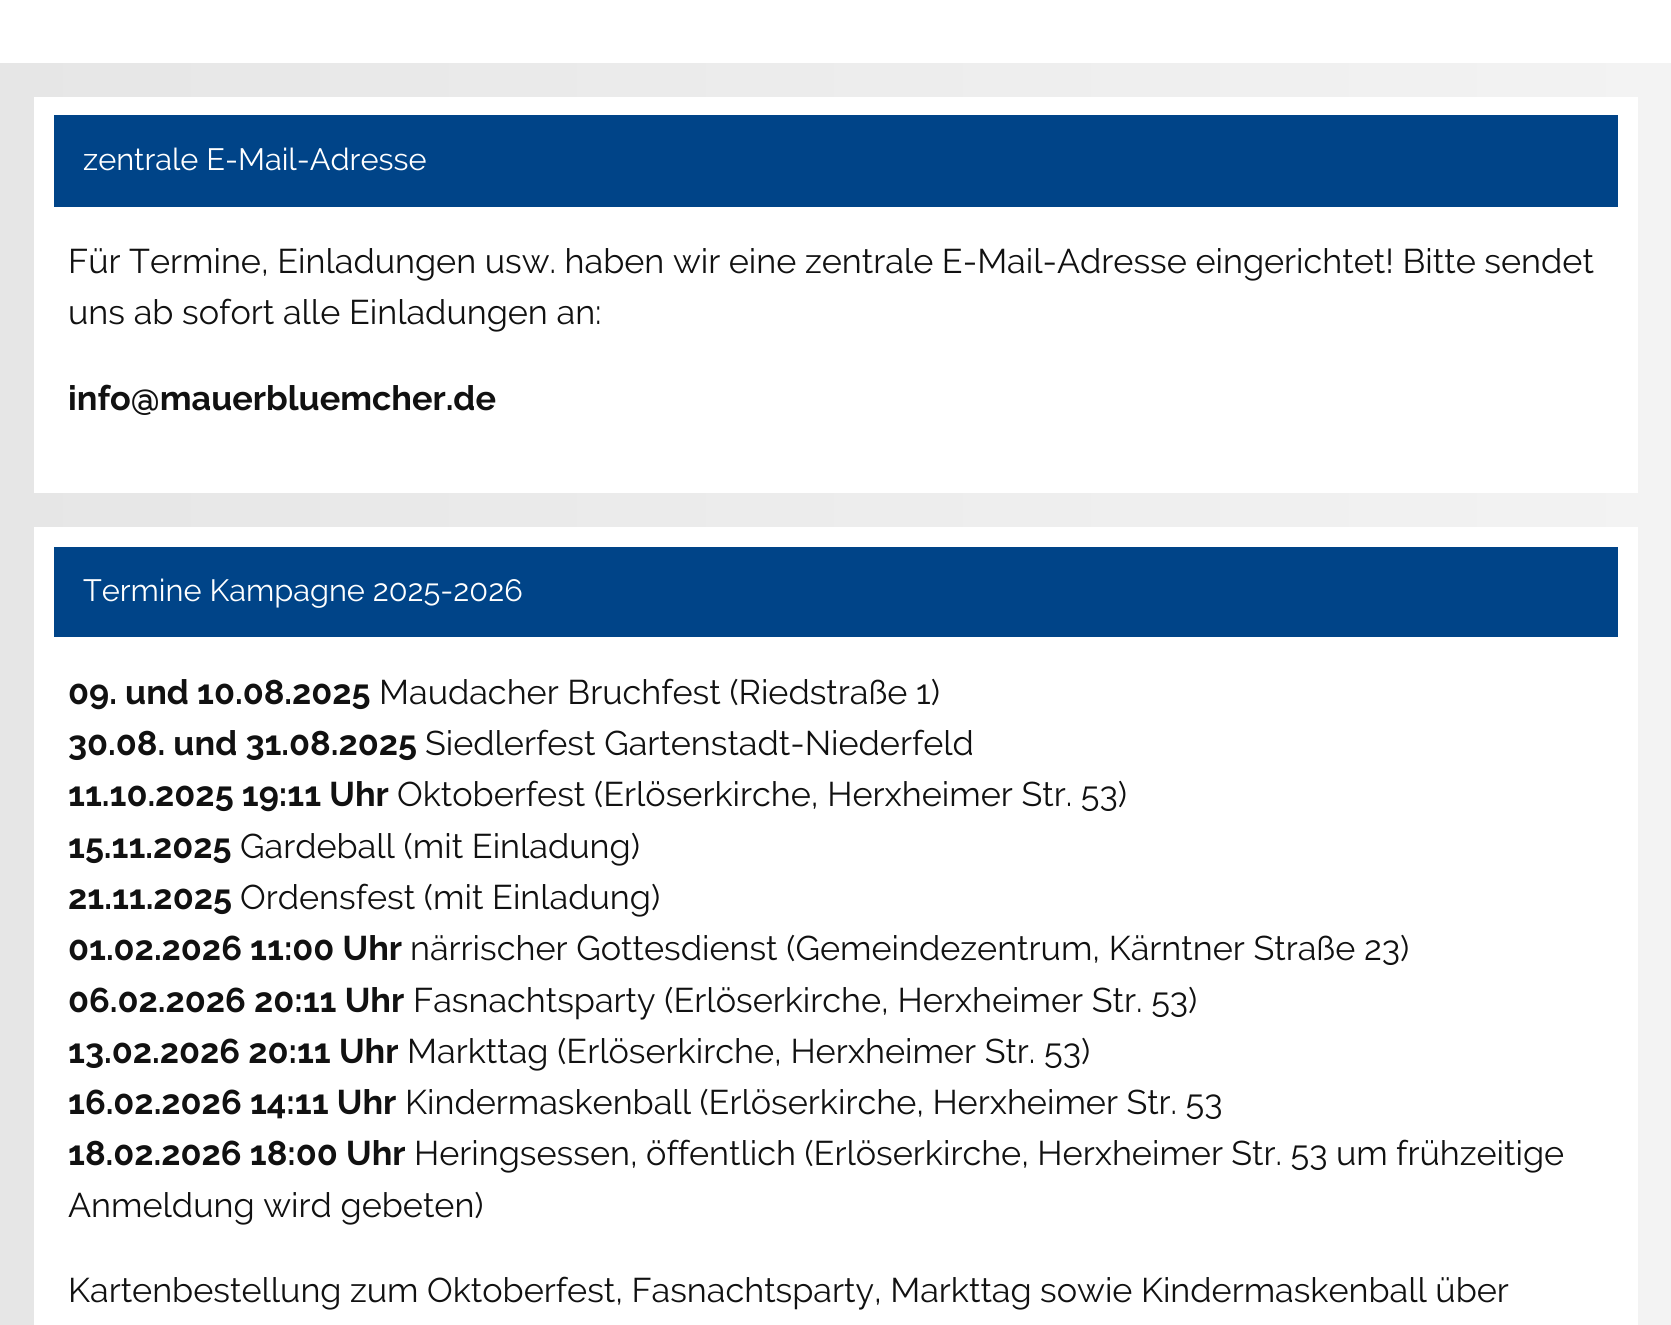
#include <cairo/cairo.h>
#include <math.h>
#include <stddef.h>

static cairo_t *cr;

static void use_color(int r, int g, int b) {
  cairo_set_source_rgb(cr, r / 255.0, g / 255.0, b / 255.0);
}

static void text(double x, double y, const char *s, const char *family, double size, int italic, int bold, int r, int g, int b) {
  cairo_select_font_face(cr, family, italic ? CAIRO_FONT_SLANT_ITALIC : CAIRO_FONT_SLANT_NORMAL,
    bold ? CAIRO_FONT_WEIGHT_BOLD : CAIRO_FONT_WEIGHT_NORMAL);
  cairo_set_font_size(cr, size);
  use_color(r, g, b);
  cairo_move_to(cr, x, y);
  cairo_show_text(cr, s);
}

static void spaced_text(double x, double y, const char *s, double letter, double word) {
  cairo_move_to(cr, x, y);
  while (*s) {
    char ch[5] = {0};
    int n = 0;
    do ch[n++] = *s++; while ((*s & 0xC0) == 0x80);
    cairo_show_text(cr, ch);
    cairo_rel_move_to(cr, letter + word * (*ch == ' '), 0);
  }
}

static void box(double x, double y, double w, double h, int r, int g, int b) {
  use_color(r, g, b);
  cairo_rectangle(cr, x, y, w, h);
  cairo_fill(cr);
}

static void draw(void) {
  cairo_pattern_t *gradient;
  use_color(255, 255, 255);
  cairo_paint(cr);
  gradient = cairo_pattern_create_linear(0, 906, 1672, 906);
  cairo_pattern_add_color_stop_rgba(gradient, 0, 0.902, 0.902, 0.902, 1);
  cairo_pattern_add_color_stop_rgba(gradient, 1, 0.953, 0.953, 0.953, 1);
  cairo_set_source(cr, gradient);
  cairo_pattern_destroy(gradient);
  cairo_rectangle(cr, 0, 63, 1671, 1262);
  cairo_fill(cr);
  box(34, 97, 1604, 396, 255, 255, 255);
  box(54, 115, 1564, 92, 0, 68, 136);
  box(34, 527, 1604, 798, 255, 255, 255);
  box(54, 547, 1564, 90, 0, 68, 136);
  text(83, 170, "zentrale E-Mail-Adresse", "Raleway", 30.75, 0, 0, 255, 255, 255);
  cairo_set_font_size(cr, 34.2);
  use_color(17, 17, 17);
  spaced_text(68, 273, "Für Termine, Einladungen usw. haben wir eine zentrale E-Mail-Adresse eingerichtet! Bitte sendet", 0, -0.1);
  text(68, 324, "uns ab sofort alle Einladungen an:", "Raleway", 34.2, 0, 0, 17, 17, 17);
  text(68, 410, "info@mauerbluemcher.de", "Raleway", 34.2, 0, 1, 17, 17, 17);
  text(83, 601, "Termine Kampagne 2025-2026", "Raleway", 30.75, 0, 0, 255, 255, 255);
  text(68, 704, "09. und 10.08.2025", "Raleway", 34.2, 0, 1, 17, 17, 17);
  text(379, 704, "Maudacher Bruchfest (Riedstraße 1)", "Raleway", 34.2, 0, 0, 17, 17, 17);
  text(68, 755, "30.08. und 31.08.2025", "Raleway", 34.2, 0, 1, 17, 17, 17);
  text(425, 755, "Siedlerfest Gartenstadt-Niederfeld", "Raleway", 34.2, 0, 0, 17, 17, 17);
  text(68, 806, "11.10.2025 19:11 Uhr", "Raleway", 34.2, 0, 1, 17, 17, 17);
  text(397, 806, "Oktoberfest (Erlöserkirche, Herxheimer Str. 53)", "Raleway", 34.2, 0, 0, 17, 17, 17);
  text(68, 858, "15.11.2025", "Raleway", 34.2, 0, 1, 17, 17, 17);
  text(240, 858, "Gardeball (mit Einladung)", "Raleway", 34.2, 0, 0, 17, 17, 17);
  text(68, 909, "21.11.2025", "Raleway", 34.2, 0, 1, 17, 17, 17);
  text(240, 909, "Ordensfest (mit Einladung)", "Raleway", 34.2, 0, 0, 17, 17, 17);
  text(68, 960, "01.02.2026 11:00 Uhr", "Raleway", 34.2, 0, 1, 17, 17, 17);
  text(410, 960, "närrischer Gottesdienst (Gemeindezentrum, Kärntner Straße 23)", "Raleway", 34.2, 0, 0, 17, 17, 17);
  text(68, 1012, "06.02.2026 20:11 Uhr", "Raleway", 34.2, 0, 1, 17, 17, 17);
  text(413, 1012, "Fasnachtsparty (Erlöserkirche, Herxheimer Str. 53)", "Raleway", 34.2, 0, 0, 17, 17, 17);
  text(68, 1063, "13.02.2026 20:11 Uhr", "Raleway", 34.2, 0, 1, 17, 17, 17);
  text(407, 1063, "Markttag (Erlöserkirche, Herxheimer Str. 53)", "Raleway", 34.2, 0, 0, 17, 17, 17);
  text(68, 1114, "16.02.2026 14:11 Uhr", "Raleway", 34.2, 0, 1, 17, 17, 17);
  cairo_select_font_face(cr, "Raleway", CAIRO_FONT_SLANT_NORMAL, CAIRO_FONT_WEIGHT_NORMAL);
  spaced_text(405, 1114, "Kindermaskenball (Erlöserkirche, Herxheimer Str. 53", 0, -0.25);
  text(68, 1165, "18.02.2026 18:00 Uhr", "Raleway", 34.2, 0, 1, 17, 17, 17);
  cairo_select_font_face(cr, "Raleway", CAIRO_FONT_SLANT_NORMAL, CAIRO_FONT_WEIGHT_NORMAL);
  spaced_text(414, 1165, "Heringsessen, öffentlich (Erlöserkirche, Herxheimer Str. 53 um frühzeitige", 0, -0.25);
  text(68, 1217, "Anmeldung wird gebeten)", "Raleway", 34.2, 0, 0, 17, 17, 17);
  spaced_text(68, 1302, "Kartenbestellung zum Oktoberfest, Fasnachtsparty, Markttag sowie Kindermaskenball über", 0, -0.25);
}

int main(void) {
  cairo_surface_t *surface = cairo_image_surface_create(CAIRO_FORMAT_RGB24, 1671, 1325);
  cr = cairo_create(surface);
  cairo_font_options_t *options = cairo_font_options_create();
  cairo_font_options_set_hint_metrics(options, CAIRO_HINT_METRICS_OFF);
  cairo_font_options_set_hint_style(options, CAIRO_HINT_STYLE_NONE);
  cairo_set_font_options(cr, options);
  cairo_set_miter_limit(cr, 4);
  draw();
  cairo_surface_write_to_png(surface, "out.png");
  cairo_font_options_destroy(options);
  cairo_destroy(cr);
  cairo_surface_destroy(surface);
  return 0;
}
